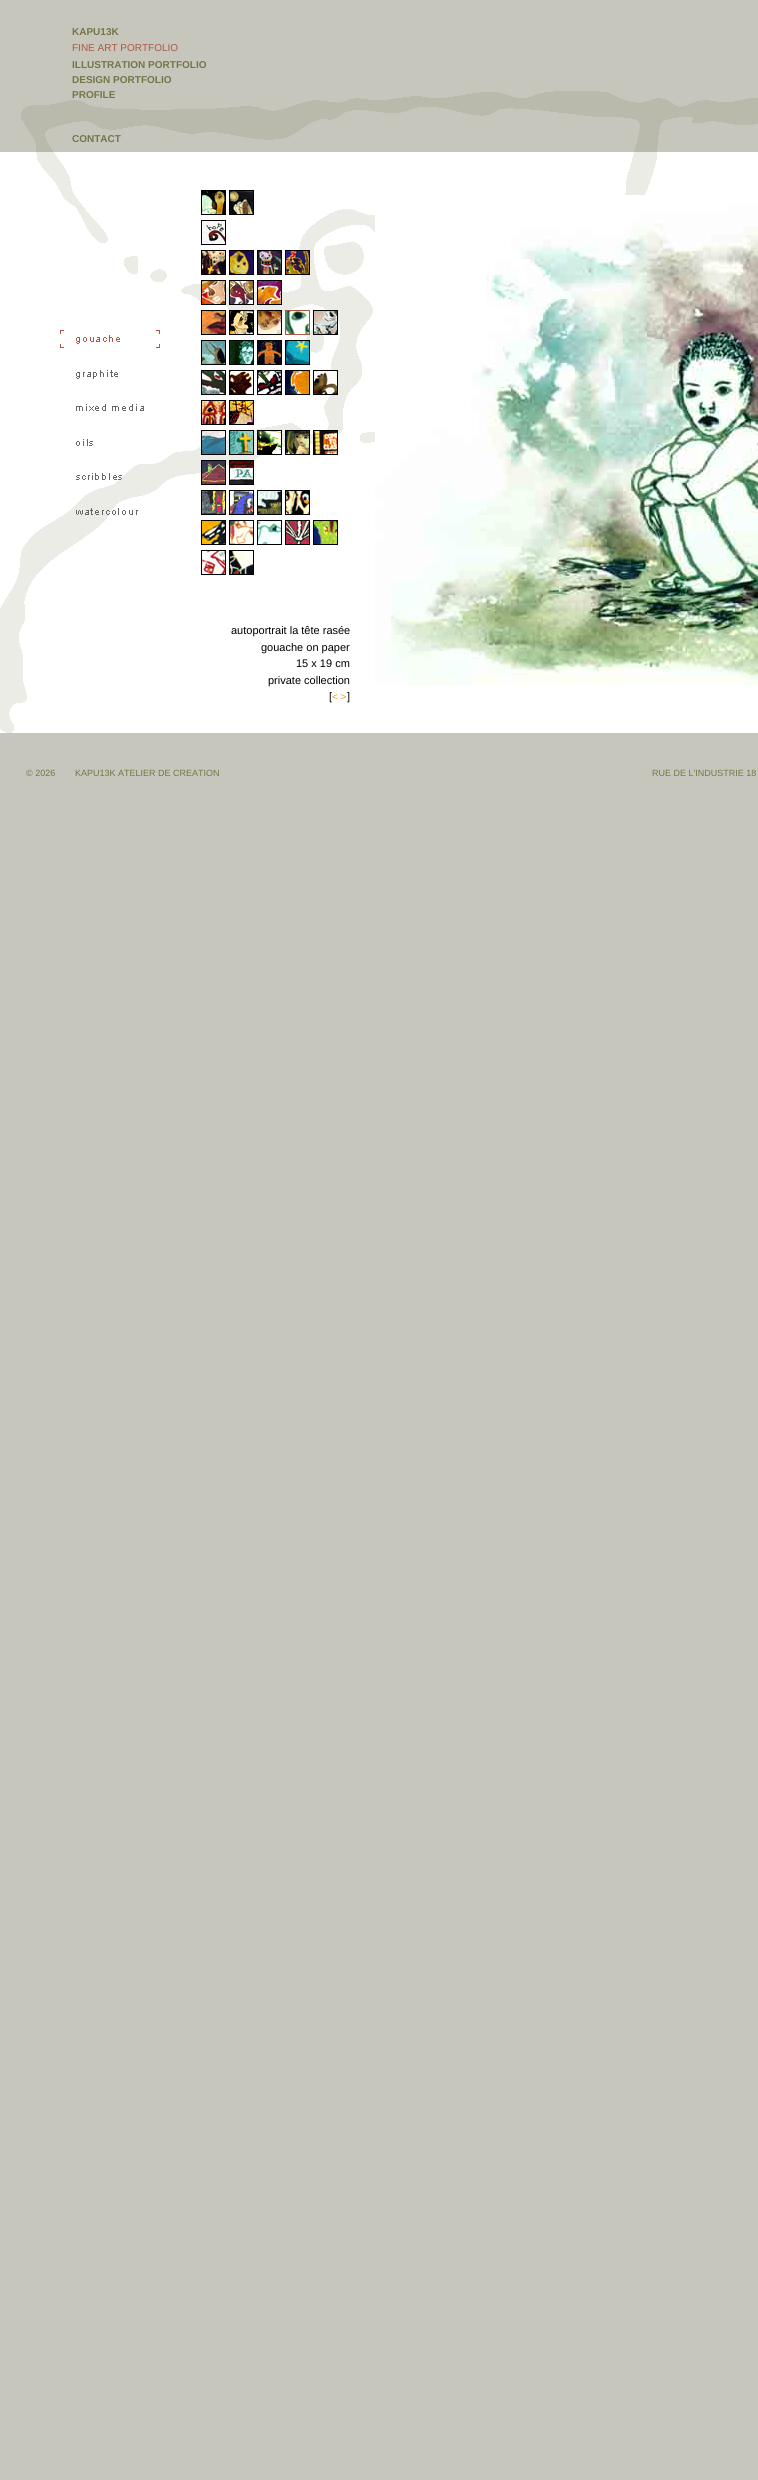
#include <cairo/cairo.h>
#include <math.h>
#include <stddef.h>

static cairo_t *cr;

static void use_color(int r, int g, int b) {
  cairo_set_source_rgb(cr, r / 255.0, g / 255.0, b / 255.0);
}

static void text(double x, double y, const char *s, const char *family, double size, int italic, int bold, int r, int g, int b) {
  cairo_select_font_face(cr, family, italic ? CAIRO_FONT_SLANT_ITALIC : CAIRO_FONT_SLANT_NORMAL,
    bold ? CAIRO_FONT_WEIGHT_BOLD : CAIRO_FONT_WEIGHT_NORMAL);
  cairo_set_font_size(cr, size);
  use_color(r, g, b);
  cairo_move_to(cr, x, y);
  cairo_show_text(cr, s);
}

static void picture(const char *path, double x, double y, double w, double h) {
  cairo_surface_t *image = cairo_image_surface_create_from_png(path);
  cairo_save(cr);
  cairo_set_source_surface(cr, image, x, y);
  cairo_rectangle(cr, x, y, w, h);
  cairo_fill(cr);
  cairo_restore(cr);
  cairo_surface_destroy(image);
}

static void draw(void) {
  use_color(198, 198, 189);
  cairo_paint(cr);
  picture("img_01.png", 0, 91, 758, 642);
  picture("img_02.png", 60, 330, 100, 18);
  picture("img_03.png", 76, 370, 42, 9);
  picture("img_04.png", 76, 404, 68, 7);
  picture("img_05.png", 76, 439, 17, 7);
  picture("img_06.png", 76, 473, 46, 7);
  picture("img_07.png", 76, 508, 62, 7);
  picture("img_08.png", 201, 190, 25, 25);
  picture("img_09.png", 229, 190, 25, 25);
  picture("img_10.png", 201, 220, 25, 25);
  picture("img_11.png", 201, 250, 25, 25);
  picture("img_12.png", 229, 250, 25, 25);
  picture("img_13.png", 257, 250, 25, 25);
  picture("img_14.png", 285, 250, 25, 25);
  picture("img_15.png", 201, 280, 25, 25);
  picture("img_16.png", 229, 280, 25, 25);
  picture("img_17.png", 257, 280, 25, 25);
  picture("img_18.png", 201, 310, 25, 25);
  picture("img_19.png", 229, 310, 25, 25);
  picture("img_20.png", 257, 310, 25, 25);
  picture("img_21.png", 285, 310, 25, 25);
  picture("img_22.png", 313, 310, 25, 25);
  picture("img_23.png", 201, 340, 25, 25);
  picture("img_24.png", 229, 340, 25, 25);
  picture("img_25.png", 257, 340, 25, 25);
  picture("img_26.png", 285, 340, 25, 25);
  picture("img_27.png", 201, 370, 25, 25);
  picture("img_28.png", 229, 370, 25, 25);
  picture("img_29.png", 257, 370, 25, 25);
  picture("img_30.png", 285, 370, 25, 25);
  picture("img_31.png", 313, 370, 25, 25);
  picture("img_32.png", 201, 400, 25, 25);
  picture("img_33.png", 229, 400, 25, 25);
  picture("img_34.png", 201, 430, 25, 25);
  picture("img_35.png", 229, 430, 25, 25);
  picture("img_36.png", 257, 430, 25, 25);
  picture("img_37.png", 285, 430, 25, 25);
  picture("img_38.png", 313, 430, 25, 25);
  picture("img_39.png", 201, 460, 25, 25);
  picture("img_40.png", 229, 460, 25, 25);
  picture("img_41.png", 201, 490, 25, 25);
  picture("img_42.png", 229, 490, 25, 25);
  picture("img_43.png", 257, 490, 25, 25);
  picture("img_44.png", 285, 490, 25, 25);
  picture("img_45.png", 201, 520, 25, 25);
  picture("img_46.png", 229, 520, 25, 25);
  picture("img_47.png", 257, 520, 25, 25);
  picture("img_48.png", 285, 520, 25, 25);
  picture("img_49.png", 313, 520, 25, 25);
  picture("img_50.png", 201, 550, 25, 25);
  picture("img_51.png", 229, 550, 25, 25);
  picture("img_52.png", 375, 195, 383, 490);
  text(72, 35, "KAPU13K", "Liberation Sans", 10, 0, 1, 117, 117, 71);
  text(72, 51, "FINE ART PORTFOLIO", "Liberation Sans", 10, 0, 0, 173, 88, 67);
  text(72, 68, "ILLUSTRATION PORTFOLIO", "Liberation Sans", 10, 0, 1, 117, 117, 71);
  text(72, 83, "DESIGN PORTFOLIO", "Liberation Sans", 10, 0, 1, 117, 117, 71);
  text(72, 98, "PROFILE", "Liberation Sans", 10, 0, 1, 117, 117, 71);
  text(72, 142, "CONTACT", "Liberation Sans", 10, 0, 1, 117, 117, 71);
  text(231, 634, "autoportrait la tête rasée", "Liberation Sans", 11, 0, 0, 0, 0, 0);
  text(261, 651, "gouache on paper", "Liberation Sans", 11, 0, 0, 0, 0, 0);
  text(296, 667, "15 x 19 cm", "Liberation Sans", 11, 0, 0, 0, 0, 0);
  text(268, 684, "private collection", "Liberation Sans", 11, 0, 0, 0, 0, 0);
  text(329, 700, "[", "Liberation Sans", 11, 0, 0, 0, 0, 0);
  text(332, 700, "< >", "Liberation Sans", 10, 0, 0, 255, 153, 0);
  text(347, 700, "]", "Liberation Sans", 11, 0, 0, 0, 0, 0);
  text(26, 776, "© 2026", "Liberation Sans", 9, 0, 0, 117, 117, 71);
  text(75, 776, "KAPU13K ATELIER DE CREATION", "Liberation Sans", 9, 0, 0, 117, 117, 71);
  text(652, 776, "RUE DE L'INDUSTRIE 18", "Liberation Sans", 9, 0, 0, 117, 117, 71);
}

int main(void) {
  cairo_surface_t *surface = cairo_image_surface_create(CAIRO_FORMAT_RGB24, 758, 2480);
  cr = cairo_create(surface);
  cairo_font_options_t *options = cairo_font_options_create();
  cairo_font_options_set_hint_metrics(options, CAIRO_HINT_METRICS_OFF);
  cairo_font_options_set_hint_style(options, CAIRO_HINT_STYLE_NONE);
  cairo_set_font_options(cr, options);
  cairo_set_miter_limit(cr, 4);
  draw();
  cairo_surface_write_to_png(surface, "out.png");
  cairo_font_options_destroy(options);
  cairo_destroy(cr);
  cairo_surface_destroy(surface);
  return 0;
}
